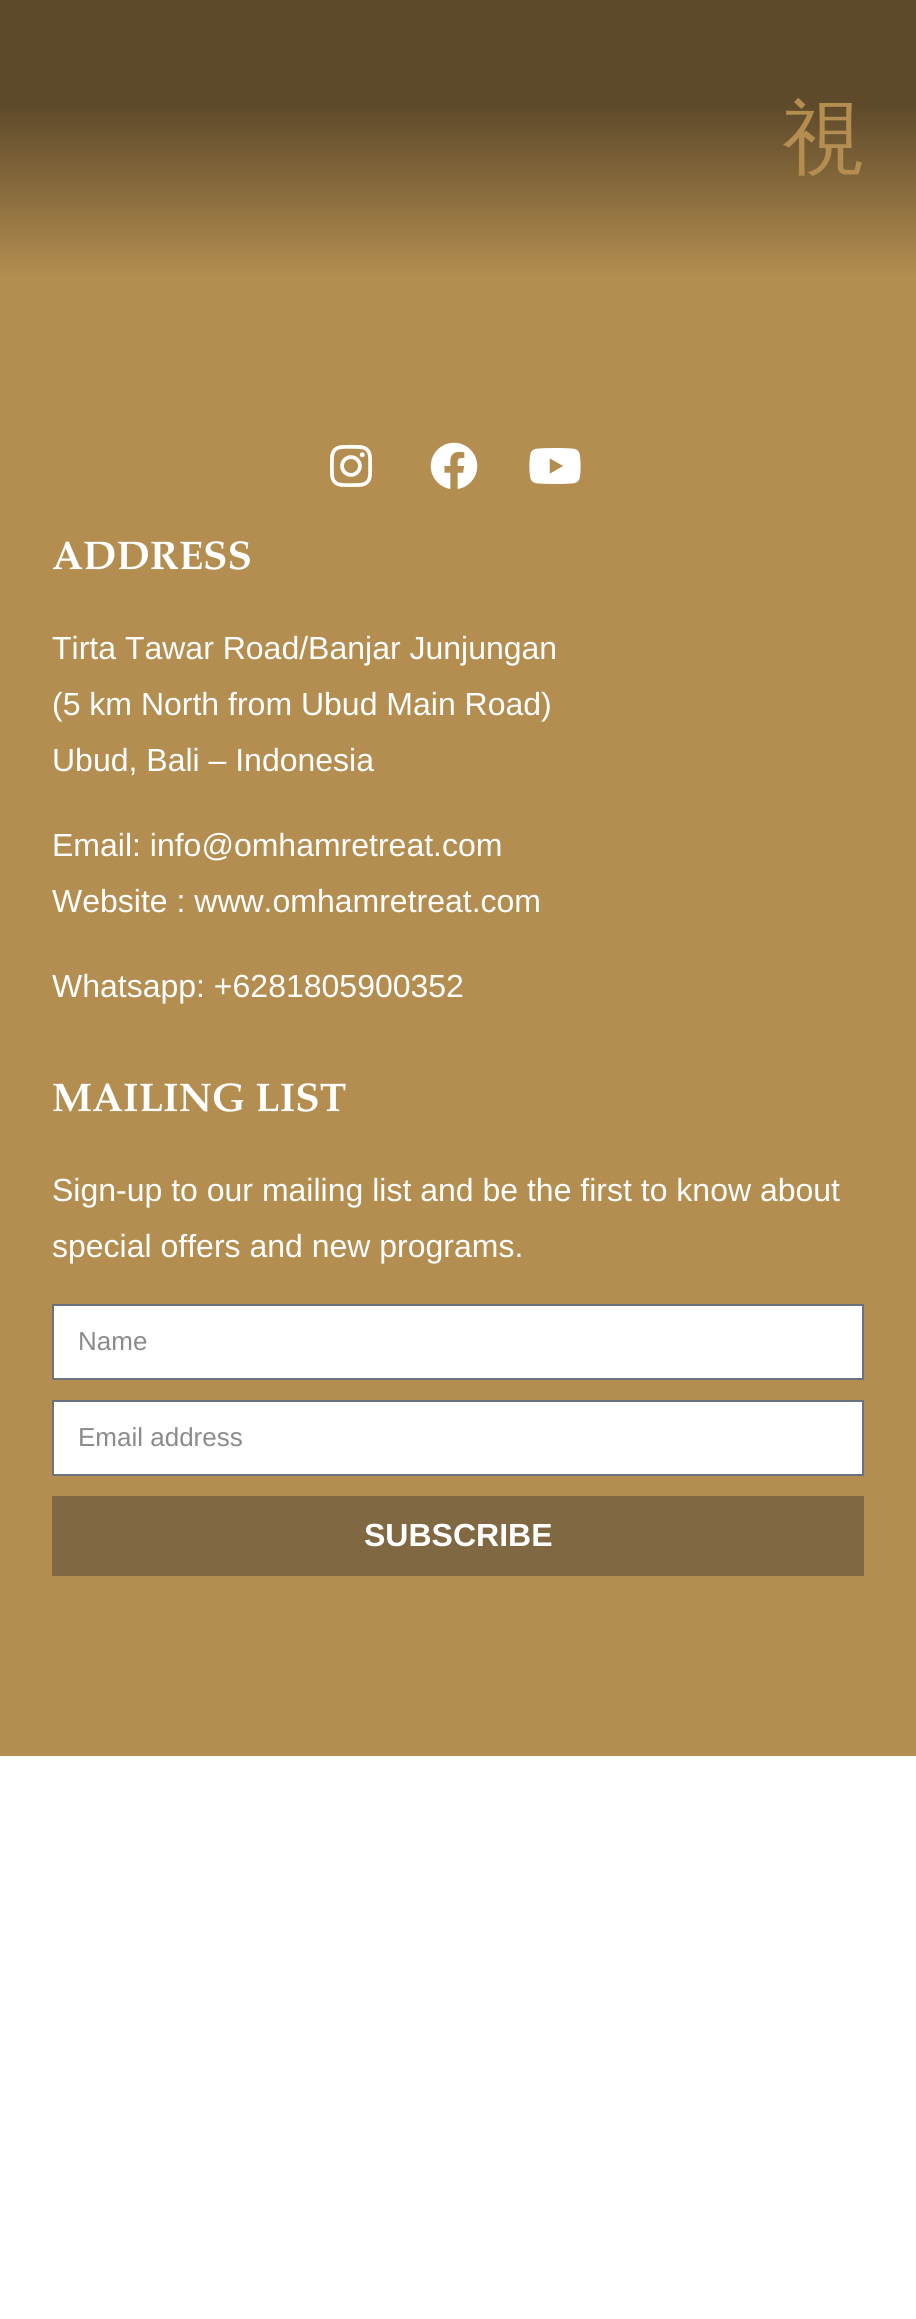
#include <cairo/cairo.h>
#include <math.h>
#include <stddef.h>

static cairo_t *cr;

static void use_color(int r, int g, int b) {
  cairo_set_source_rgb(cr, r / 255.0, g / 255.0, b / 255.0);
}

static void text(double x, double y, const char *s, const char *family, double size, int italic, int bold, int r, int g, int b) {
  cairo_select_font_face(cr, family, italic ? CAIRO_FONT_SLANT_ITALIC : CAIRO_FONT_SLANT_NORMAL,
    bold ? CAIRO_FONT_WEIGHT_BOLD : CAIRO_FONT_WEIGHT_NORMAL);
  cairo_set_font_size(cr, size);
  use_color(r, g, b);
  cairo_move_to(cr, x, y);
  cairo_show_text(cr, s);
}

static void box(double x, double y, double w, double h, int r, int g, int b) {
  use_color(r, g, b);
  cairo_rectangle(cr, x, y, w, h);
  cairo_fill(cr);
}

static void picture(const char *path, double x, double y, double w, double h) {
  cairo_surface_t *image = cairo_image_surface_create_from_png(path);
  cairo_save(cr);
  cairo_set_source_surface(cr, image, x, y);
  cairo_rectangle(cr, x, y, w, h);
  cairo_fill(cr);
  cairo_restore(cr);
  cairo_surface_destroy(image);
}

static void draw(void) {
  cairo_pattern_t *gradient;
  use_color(255, 255, 255);
  cairo_paint(cr);
  gradient = cairo_pattern_create_linear(458, 0, 458, 278);
  cairo_pattern_add_color_stop_rgba(gradient, 0.38, 0.369, 0.29, 0.165, 1);
  cairo_pattern_add_color_stop_rgba(gradient, 1, 0.706, 0.557, 0.318, 1);
  cairo_set_source(cr, gradient);
  cairo_pattern_destroy(gradient);
  cairo_rectangle(cr, 0, 0, 916, 278);
  cairo_fill(cr);
  box(0, 278, 916, 1478, 180, 142, 81);
  picture("img_01.png", 330, 444, 43, 43);
  picture("img_02.png", 430, 442, 48, 47);
  picture("img_03.png", 529, 448, 52, 36);
  use_color(255, 255, 255);
  cairo_rectangle(cr, 53, 1305, 810, 74);
  cairo_fill_preserve(cr);
  use_color(105, 114, 125);
  cairo_stroke(cr);
  use_color(255, 255, 255);
  cairo_rectangle(cr, 53, 1401, 810, 74);
  cairo_fill_preserve(cr);
  use_color(105, 114, 125);
  cairo_stroke(cr);
  box(52, 1496, 812, 80, 128, 104, 66);
  text(782, 166, "視", "WenQuanYi Zen Hei Medium", 82, 0, 0, 180, 142, 81);
  text(52, 569, "ADDRESS", "TeX Gyre Pagella", 40, 0, 1, 255, 255, 255);
  text(52, 659, "Tirta Tawar Road/Banjar Junjungan", "Liberation Sans", 32, 0, 0, 255, 255, 255);
  text(52, 715, "(5 km North from Ubud Main Road)", "Liberation Sans", 32, 0, 0, 255, 255, 255);
  text(52, 771, "Ubud, Bali – Indonesia", "Liberation Sans", 32, 0, 0, 255, 255, 255);
  text(52, 856, "Email: info@omhamretreat.com", "Liberation Sans", 32, 0, 0, 255, 255, 255);
  text(52, 912, "Website : www.omhamretreat.com", "Liberation Sans", 32, 0, 0, 255, 255, 255);
  text(52, 997, "Whatsapp: +6281805900352", "Liberation Sans", 32, 0, 0, 255, 255, 255);
  text(52, 1111, "MAILING LIST", "TeX Gyre Pagella", 40, 0, 1, 255, 255, 255);
  text(52, 1201, "Sign-up to our mailing list and be the first to know about", "Liberation Sans", 32, 0, 0, 255, 255, 255);
  text(52, 1257, "special offers and new programs.", "Liberation Sans", 32, 0, 0, 255, 255, 255);
  text(78, 1350, "Name", "Liberation Sans", 26, 0, 0, 140, 139, 139);
  text(78, 1446, "Email address", "Liberation Sans", 26, 0, 0, 140, 139, 139);
  text(364, 1546, "SUBSCRIBE", "Liberation Sans", 32, 0, 1, 255, 255, 255);
}

int main(void) {
  cairo_surface_t *surface = cairo_image_surface_create(CAIRO_FORMAT_RGB24, 916, 2319);
  cr = cairo_create(surface);
  cairo_font_options_t *options = cairo_font_options_create();
  cairo_font_options_set_hint_metrics(options, CAIRO_HINT_METRICS_OFF);
  cairo_font_options_set_hint_style(options, CAIRO_HINT_STYLE_NONE);
  cairo_set_font_options(cr, options);
  cairo_set_miter_limit(cr, 4);
  draw();
  cairo_surface_write_to_png(surface, "out.png");
  cairo_font_options_destroy(options);
  cairo_destroy(cr);
  cairo_surface_destroy(surface);
  return 0;
}
